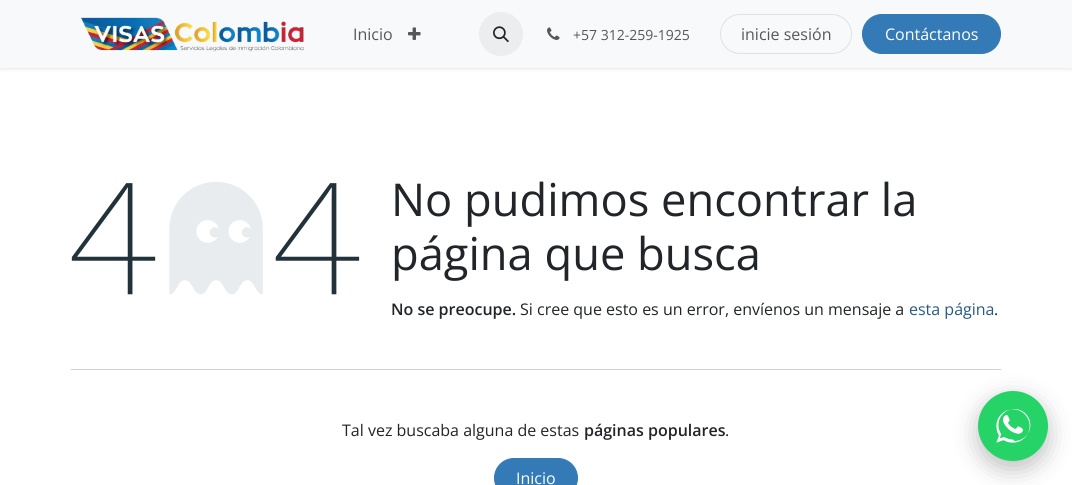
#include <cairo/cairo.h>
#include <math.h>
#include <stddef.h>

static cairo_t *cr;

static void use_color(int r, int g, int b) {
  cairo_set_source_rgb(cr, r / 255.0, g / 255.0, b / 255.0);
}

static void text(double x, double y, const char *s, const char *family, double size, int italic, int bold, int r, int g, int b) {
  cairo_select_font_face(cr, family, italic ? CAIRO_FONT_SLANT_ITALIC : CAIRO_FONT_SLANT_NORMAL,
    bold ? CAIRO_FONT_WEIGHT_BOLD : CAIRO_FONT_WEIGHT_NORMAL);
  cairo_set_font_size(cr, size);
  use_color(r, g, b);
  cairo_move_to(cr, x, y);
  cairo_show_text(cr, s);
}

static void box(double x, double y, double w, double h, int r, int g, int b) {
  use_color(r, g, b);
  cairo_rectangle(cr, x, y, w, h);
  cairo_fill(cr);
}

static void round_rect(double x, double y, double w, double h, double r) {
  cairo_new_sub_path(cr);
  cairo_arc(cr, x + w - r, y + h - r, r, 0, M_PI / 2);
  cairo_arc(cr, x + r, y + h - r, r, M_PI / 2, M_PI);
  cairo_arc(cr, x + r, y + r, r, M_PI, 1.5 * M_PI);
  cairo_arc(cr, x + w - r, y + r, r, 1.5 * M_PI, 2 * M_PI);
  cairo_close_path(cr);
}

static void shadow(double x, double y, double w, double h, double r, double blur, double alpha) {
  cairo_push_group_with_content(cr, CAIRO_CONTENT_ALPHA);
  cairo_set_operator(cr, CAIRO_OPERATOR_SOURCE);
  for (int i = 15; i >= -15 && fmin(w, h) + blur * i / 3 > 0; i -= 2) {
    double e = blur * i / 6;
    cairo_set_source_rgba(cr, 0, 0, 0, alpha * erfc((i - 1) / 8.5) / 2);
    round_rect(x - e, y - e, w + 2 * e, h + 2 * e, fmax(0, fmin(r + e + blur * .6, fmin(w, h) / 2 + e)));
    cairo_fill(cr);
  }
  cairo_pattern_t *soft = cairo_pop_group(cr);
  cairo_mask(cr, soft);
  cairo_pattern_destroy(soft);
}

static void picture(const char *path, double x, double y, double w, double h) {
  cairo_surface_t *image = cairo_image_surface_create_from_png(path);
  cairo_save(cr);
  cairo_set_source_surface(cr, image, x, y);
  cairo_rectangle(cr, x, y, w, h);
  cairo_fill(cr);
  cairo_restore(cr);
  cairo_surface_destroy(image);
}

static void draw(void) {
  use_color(255, 255, 255);
  cairo_paint(cr);
  use_color(0, 0, 0);
  shadow(0, 1, 1072, 68, 0, 1.5, 0.1);
  box(0, 0, 1072, 68, 248, 249, 250);
  picture("img_01.png", 81, 17, 223, 35);
  picture("img_02.png", 408, 27, 13, 13);
  use_color(236, 237, 238);
  cairo_arc(cr, 501, 34, 22, 0, 2 * M_PI);
  cairo_fill(cr);
  picture("img_03.png", 493, 26, 16, 17);
  picture("img_04.png", 547, 27, 13, 13);
  round_rect(720.5, 14.5, 131, 39, 19.5);
  use_color(224, 225, 226);
  cairo_set_line_width(cr, 1);
  cairo_stroke(cr);
  use_color(51, 122, 183);
  round_rect(862.5, 14.5, 138, 39, 19.5);
  cairo_fill_preserve(cr);
  cairo_stroke(cr);
  picture("img_05.png", 71, 182, 289, 113);
  box(71, 369, 930, 1, 206, 212, 218);
  use_color(51, 122, 183);
  round_rect(494.5, 458.5, 83, 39, 19.5);
  cairo_fill_preserve(cr);
  cairo_stroke(cr);
  use_color(0, 0, 0);
  shadow(978, 399, 70, 70, 35, 12, 0.25);
  use_color(37, 211, 102);
  cairo_arc(cr, 1013, 426, 35, 0, 2 * M_PI);
  cairo_fill(cr);
  picture("img_06.png", 996, 409, 35, 34);
  text(353, 40, "Inicio", "Open Sans", 16, 0, 0, 87, 87, 88);
  text(573, 40, "+57 312-259-1925", "Open Sans", 14, 0, 0, 87, 87, 88);
  text(741, 40, "inicie sesión", "Open Sans", 16, 0, 0, 87, 87, 88);
  text(885, 40, "Contáctanos", "Open Sans", 16, 0, 0, 255, 255, 255);
  text(391, 216, "No pudimos encontrar la", "Open Sans", 45.25, 0, 0, 33, 37, 41);
  text(391, 270, "página que busca", "Open Sans", 45.25, 0, 0, 33, 37, 41);
  text(391, 315, "No se preocupe.", "Open Sans SemiBold", 16, 0, 0, 33, 37, 41);
  text(520, 315, "Si cree que esto es un error, envíenos un mensaje a", "Open Sans", 16, 0, 0, 33, 37, 41);
  text(909, 315, "esta página", "Open Sans", 16, 0, 0, 38, 90, 135);
  text(994, 315, ".", "Open Sans", 16, 0, 0, 33, 37, 41);
  text(342, 436, "Tal vez buscaba alguna de estas", "Open Sans", 16, 0, 0, 33, 37, 41);
  text(584, 436, "páginas populares", "Open Sans SemiBold", 16, 0, 0, 33, 37, 41);
  text(725, 436, ".", "Open Sans", 16, 0, 0, 33, 37, 41);
  text(516, 484, "Inicio", "Open Sans", 16, 0, 0, 255, 255, 255);
}

int main(void) {
  cairo_surface_t *surface = cairo_image_surface_create(CAIRO_FORMAT_RGB24, 1072, 485);
  cr = cairo_create(surface);
  cairo_font_options_t *options = cairo_font_options_create();
  cairo_font_options_set_hint_metrics(options, CAIRO_HINT_METRICS_OFF);
  cairo_font_options_set_hint_style(options, CAIRO_HINT_STYLE_NONE);
  cairo_set_font_options(cr, options);
  cairo_set_miter_limit(cr, 4);
  draw();
  cairo_surface_write_to_png(surface, "out.png");
  cairo_font_options_destroy(options);
  cairo_destroy(cr);
  cairo_surface_destroy(surface);
  return 0;
}
